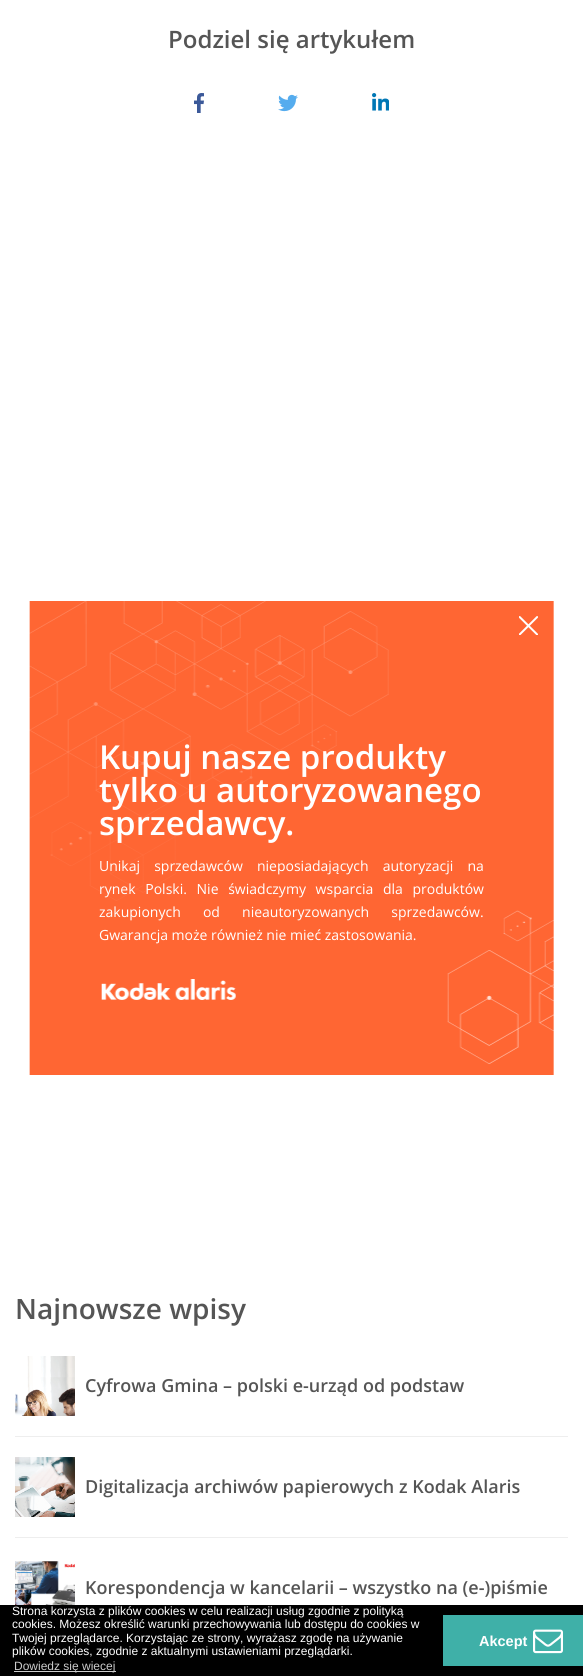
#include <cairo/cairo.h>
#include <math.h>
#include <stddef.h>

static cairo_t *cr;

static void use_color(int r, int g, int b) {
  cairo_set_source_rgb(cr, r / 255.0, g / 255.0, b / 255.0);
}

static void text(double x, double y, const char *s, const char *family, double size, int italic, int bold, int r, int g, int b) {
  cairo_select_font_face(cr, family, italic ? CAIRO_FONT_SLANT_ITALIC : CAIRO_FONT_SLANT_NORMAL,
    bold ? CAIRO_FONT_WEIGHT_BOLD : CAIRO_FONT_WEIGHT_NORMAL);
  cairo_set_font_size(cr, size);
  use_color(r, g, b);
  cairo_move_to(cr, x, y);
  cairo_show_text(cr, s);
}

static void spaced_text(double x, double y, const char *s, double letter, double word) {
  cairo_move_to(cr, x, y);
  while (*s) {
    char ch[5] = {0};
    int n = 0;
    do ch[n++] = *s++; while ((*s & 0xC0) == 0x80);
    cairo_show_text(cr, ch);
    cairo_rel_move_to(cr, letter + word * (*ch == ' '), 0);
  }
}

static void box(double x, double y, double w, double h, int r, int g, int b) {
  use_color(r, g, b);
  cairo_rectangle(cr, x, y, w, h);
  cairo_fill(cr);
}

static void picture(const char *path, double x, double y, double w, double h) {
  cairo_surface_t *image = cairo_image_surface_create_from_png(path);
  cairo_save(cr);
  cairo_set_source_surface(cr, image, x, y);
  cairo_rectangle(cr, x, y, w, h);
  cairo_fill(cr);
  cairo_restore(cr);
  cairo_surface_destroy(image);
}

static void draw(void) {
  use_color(255, 255, 255);
  cairo_paint(cr);
  picture("img_01.png", 194, 93, 10, 20);
  picture("img_02.png", 278, 94, 20, 18);
  picture("img_03.png", 372, 93, 17, 18);
  picture("img_04.png", 15, 1356, 60, 60);
  box(15, 1436, 553, 1, 238, 238, 238);
  picture("img_05.png", 15, 1457, 60, 60);
  box(15, 1537, 553, 1, 238, 238, 238);
  picture("img_06.png", 15, 1561, 60, 44);
  picture("img_07.png", 29, 601, 525, 474);
  picture("img_08.png", 519, 616, 19, 19);
  box(0, 1605, 583, 71, 0, 0, 0);
  box(14, 1671, 102, 1, 204, 204, 204);
  box(443, 1615, 140, 51, 63, 176, 168);
  picture("img_09.png", 533, 1629, 30, 25);
  text(168, 48, "Podziel się artykułem", "Open Sans SemiBold", 24, 0, 0, 85, 85, 85);
  text(15, 1319, "Najnowsze wpisy", "Open Sans SemiBold", 28, 0, 0, 85, 85, 85);
  text(85, 1392, "Cyfrowa Gmina – polski e-urząd od podstaw", "Open Sans SemiBold", 18, 0, 0, 85, 85, 85);
  text(85, 1493, "Digitalizacja archiwów papierowych z Kodak Alaris", "Open Sans SemiBold", 18, 0, 0, 85, 85, 85);
  text(85, 1594, "Korespondencja w kancelarii – wszystko na (e-)piśmie", "Open Sans SemiBold", 18, 0, 0, 85, 85, 85);
  text(99, 769, "Kupuj nasze produkty", "Open Sans SemiBold", 33, 0, 0, 255, 255, 255);
  text(99, 802, "tylko u autoryzowanego", "Open Sans SemiBold", 33, 0, 0, 255, 255, 255);
  text(99, 835, "sprzedawcy.", "Open Sans SemiBold", 33, 0, 0, 255, 255, 255);
  cairo_select_font_face(cr, "Open Sans", CAIRO_FONT_SLANT_NORMAL, CAIRO_FONT_WEIGHT_NORMAL);
  cairo_set_font_size(cr, 14);
  spaced_text(99, 871, "Unikaj sprzedawców nieposiadających autoryzacji na", 0, 10.5);
  spaced_text(99, 894, "rynek Polski. Nie świadczymy wsparcia dla produktów", 0, 6);
  spaced_text(99, 917, "zakupionych od nieautoryzowanych sprzedawców.", 0, 18.5);
  text(99, 940, "Gwarancja może również nie mieć zastosowania.", "Open Sans", 14, 0, 0, 255, 255, 255);
  text(12, 1615, "Strona korzysta z plików cookies w celu realizacji usług zgodnie z polityką", "Liberation Sans", 12, 0, 0, 255, 255, 255);
  text(12, 1628, "cookies. Możesz określić warunki przechowywania lub dostępu do cookies w", "Liberation Sans", 12, 0, 0, 255, 255, 255);
  text(12, 1642, "Twojej przeglądarce. Korzystając ze strony, wyrażasz zgodę na używanie", "Liberation Sans", 12, 0, 0, 255, 255, 255);
  text(12, 1655, "plików cookies, zgodnie z aktualnymi ustawieniami przeglądarki.", "Liberation Sans", 12, 0, 0, 255, 255, 255);
  text(14, 1670, "Dowiedz się wiecej", "Liberation Sans", 12, 0, 0, 204, 204, 204);
  text(479, 1646, "Akcept", "Liberation Sans", 14.5, 0, 1, 255, 255, 255);
}

int main(void) {
  cairo_surface_t *surface = cairo_image_surface_create(CAIRO_FORMAT_RGB24, 583, 1676);
  cr = cairo_create(surface);
  cairo_font_options_t *options = cairo_font_options_create();
  cairo_font_options_set_hint_metrics(options, CAIRO_HINT_METRICS_OFF);
  cairo_font_options_set_hint_style(options, CAIRO_HINT_STYLE_NONE);
  cairo_set_font_options(cr, options);
  cairo_set_miter_limit(cr, 4);
  draw();
  cairo_surface_write_to_png(surface, "out.png");
  cairo_font_options_destroy(options);
  cairo_destroy(cr);
  cairo_surface_destroy(surface);
  return 0;
}
